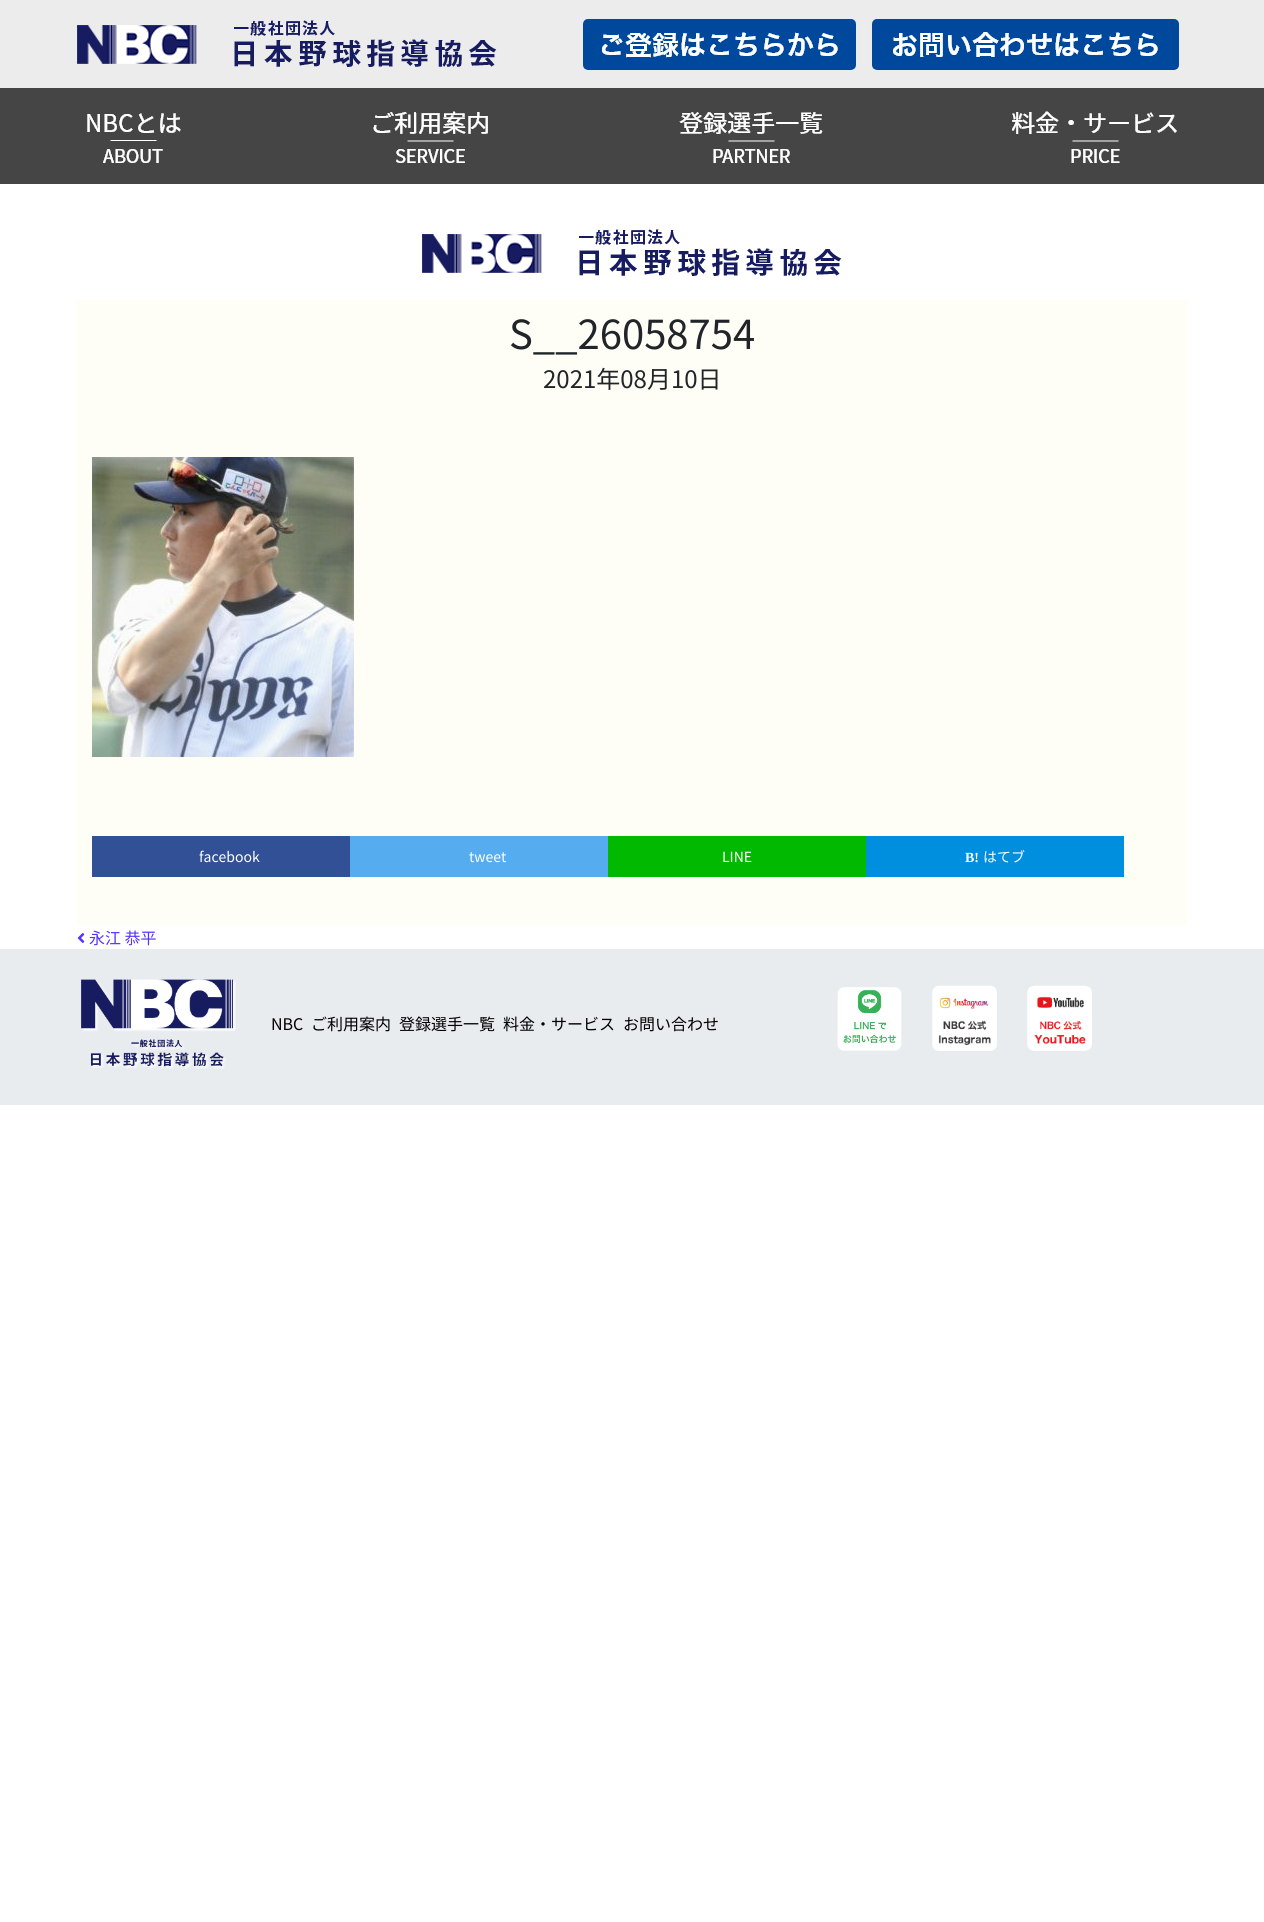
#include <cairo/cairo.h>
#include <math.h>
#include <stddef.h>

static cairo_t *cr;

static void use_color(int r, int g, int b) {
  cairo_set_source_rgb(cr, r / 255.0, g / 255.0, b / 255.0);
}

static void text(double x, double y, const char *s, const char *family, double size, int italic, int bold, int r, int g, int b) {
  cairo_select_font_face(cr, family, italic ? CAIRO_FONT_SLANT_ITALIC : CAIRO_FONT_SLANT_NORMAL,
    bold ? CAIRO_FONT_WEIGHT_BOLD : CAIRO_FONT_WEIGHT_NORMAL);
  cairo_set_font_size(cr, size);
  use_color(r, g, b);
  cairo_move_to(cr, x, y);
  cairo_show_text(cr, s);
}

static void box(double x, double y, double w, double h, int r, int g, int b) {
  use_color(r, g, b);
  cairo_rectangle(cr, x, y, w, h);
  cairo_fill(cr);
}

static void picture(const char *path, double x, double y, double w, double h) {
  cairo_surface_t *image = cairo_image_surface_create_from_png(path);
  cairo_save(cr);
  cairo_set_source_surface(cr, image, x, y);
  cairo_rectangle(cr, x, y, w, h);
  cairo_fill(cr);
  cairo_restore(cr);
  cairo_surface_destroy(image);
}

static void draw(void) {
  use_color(255, 255, 255);
  cairo_paint(cr);
  box(0, 0, 1264, 88, 236, 236, 236);
  picture("img_01.png", 77, 20, 420, 47);
  picture("img_02.png", 583, 19, 273, 51);
  picture("img_03.png", 872, 19, 307, 51);
  box(0, 88, 1264, 96, 69, 69, 69);
  picture("img_04.png", 87, 113, 94, 50);
  picture("img_05.png", 373, 111, 115, 52);
  picture("img_06.png", 679, 112, 144, 51);
  picture("img_07.png", 1012, 111, 165, 52);
  picture("img_08.png", 422, 229, 420, 47);
  box(77, 300, 1110, 625, 255, 254, 246);
  picture("img_09.png", 92, 457, 262, 300);
  box(92, 836, 258, 41, 49, 80, 150);
  box(350, 836, 258, 41, 85, 172, 238);
  box(608, 836, 258, 41, 0, 185, 0);
  box(866, 836, 258, 41, 0, 143, 222);
  picture("img_10.png", 77, 933, 8, 10);
  box(0, 949, 1264, 156, 233, 236, 239);
  picture("img_11.png", 81, 979, 155, 90);
  picture("img_12.png", 837, 987, 65, 64);
  picture("img_13.png", 932, 985, 65, 66);
  picture("img_14.png", 1027, 985, 65, 66);
  text(509, 349, "S__26058754", "Noto Sans JP", 40, 0, 0, 33, 37, 41);
  text(543, 388, "2021年08月10日", "Noto Sans JP", 24, 0, 0, 33, 37, 41);
  text(199, 862, "facebook", "Noto Sans JP", 14, 0, 0, 255, 255, 255);
  text(469, 862, "tweet", "Noto Sans JP", 14, 0, 0, 255, 255, 255);
  text(722, 862, "LINE", "Noto Sans JP", 14, 0, 0, 255, 255, 255);
  text(965, 862, "B!", "Liberation Serif", 14, 0, 1, 255, 255, 255);
  text(983, 862, "はてブ", "Noto Sans JP", 14, 0, 0, 255, 255, 255);
  text(89, 944, "永江 恭平", "Noto Sans JP", 16, 0, 0, 85, 51, 255);
  text(271, 1030, "NBC", "Noto Sans JP", 16, 0, 0, 0, 0, 0);
  text(311, 1030, "ご利用案内", "Noto Sans JP", 16, 0, 0, 0, 0, 0);
  text(399, 1030, "登録選手一覧", "Noto Sans JP", 16, 0, 0, 0, 0, 0);
  text(503, 1030, "料金・サービス", "Noto Sans JP", 16, 0, 0, 0, 0, 0);
  text(623, 1030, "お問い合わせ", "Noto Sans JP", 16, 0, 0, 0, 0, 0);
}

int main(void) {
  cairo_surface_t *surface = cairo_image_surface_create(CAIRO_FORMAT_RGB24, 1264, 1922);
  cr = cairo_create(surface);
  cairo_font_options_t *options = cairo_font_options_create();
  cairo_font_options_set_hint_metrics(options, CAIRO_HINT_METRICS_OFF);
  cairo_font_options_set_hint_style(options, CAIRO_HINT_STYLE_NONE);
  cairo_set_font_options(cr, options);
  cairo_set_miter_limit(cr, 4);
  draw();
  cairo_surface_write_to_png(surface, "out.png");
  cairo_font_options_destroy(options);
  cairo_destroy(cr);
  cairo_surface_destroy(surface);
  return 0;
}
